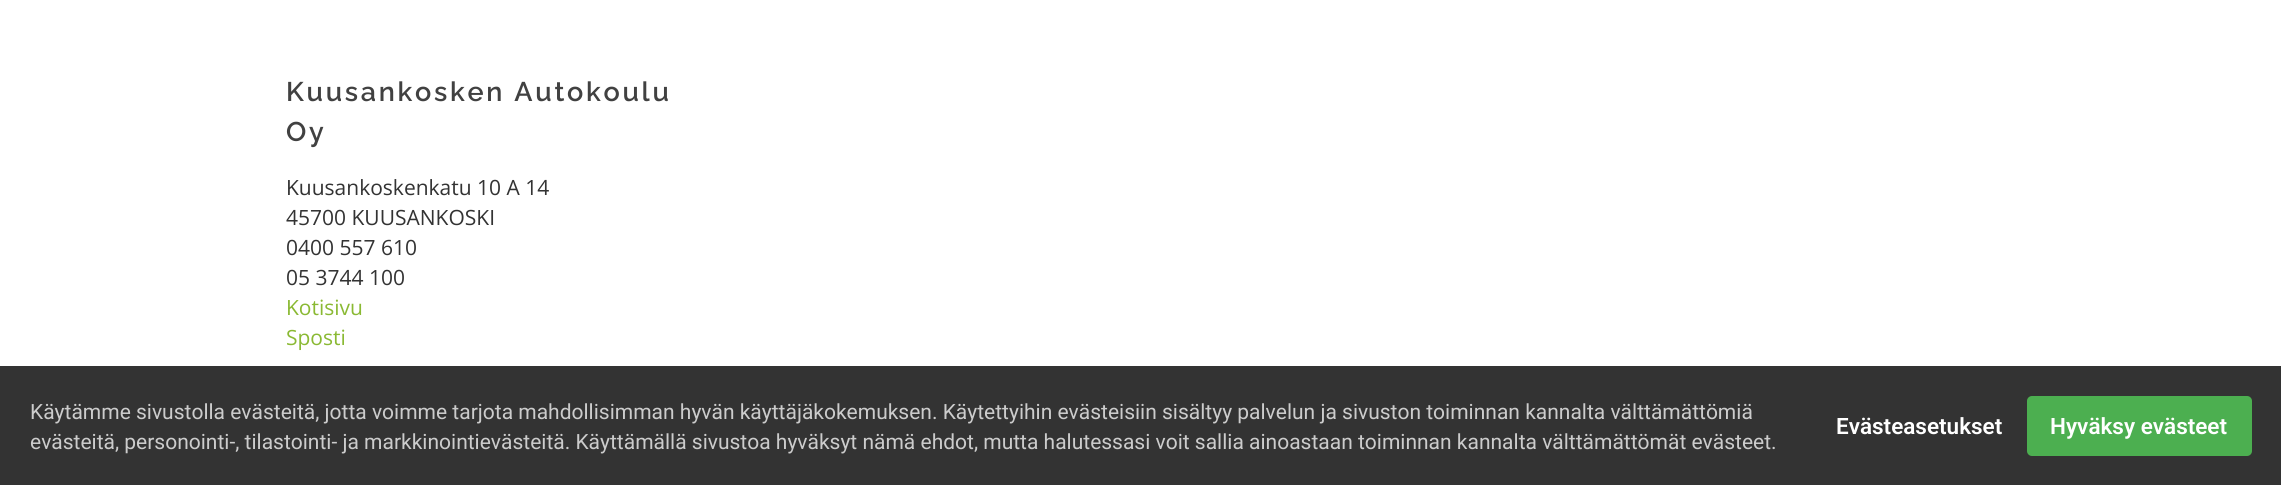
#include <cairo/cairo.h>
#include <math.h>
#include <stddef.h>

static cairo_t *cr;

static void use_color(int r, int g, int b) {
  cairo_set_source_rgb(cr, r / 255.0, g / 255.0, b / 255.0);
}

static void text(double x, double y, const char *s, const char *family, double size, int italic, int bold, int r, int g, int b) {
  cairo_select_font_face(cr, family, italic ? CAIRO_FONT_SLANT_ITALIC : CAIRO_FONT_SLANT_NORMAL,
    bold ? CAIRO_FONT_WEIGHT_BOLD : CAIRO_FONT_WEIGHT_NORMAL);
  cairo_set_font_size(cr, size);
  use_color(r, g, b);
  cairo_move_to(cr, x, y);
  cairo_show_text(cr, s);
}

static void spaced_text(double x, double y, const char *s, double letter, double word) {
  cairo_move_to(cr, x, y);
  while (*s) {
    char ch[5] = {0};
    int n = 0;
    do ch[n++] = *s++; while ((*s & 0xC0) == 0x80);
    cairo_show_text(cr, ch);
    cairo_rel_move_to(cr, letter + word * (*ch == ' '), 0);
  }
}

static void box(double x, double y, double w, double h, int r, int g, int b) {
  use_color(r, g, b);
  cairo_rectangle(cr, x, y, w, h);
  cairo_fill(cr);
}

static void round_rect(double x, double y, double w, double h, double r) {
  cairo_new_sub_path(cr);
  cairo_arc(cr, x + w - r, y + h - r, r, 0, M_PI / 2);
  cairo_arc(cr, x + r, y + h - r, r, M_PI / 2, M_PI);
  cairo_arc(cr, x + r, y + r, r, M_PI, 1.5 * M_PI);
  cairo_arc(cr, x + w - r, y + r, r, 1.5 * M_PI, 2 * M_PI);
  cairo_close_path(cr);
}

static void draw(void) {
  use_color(255, 255, 255);
  cairo_paint(cr);
  box(0, 366, 2281, 119, 51, 51, 51);
  use_color(76, 175, 80);
  round_rect(2027, 396, 225, 60, 5);
  cairo_fill(cr);
  cairo_select_font_face(cr, "Raleway SemiBold", CAIRO_FONT_SLANT_NORMAL, CAIRO_FONT_WEIGHT_NORMAL);
  cairo_set_font_size(cr, 27);
  use_color(65, 65, 65);
  spaced_text(286, 101, "Kuusankosken Autokoulu", 2.7, 0);
  spaced_text(286, 141, "Oy", 2.7, 0);
  text(286, 195, "Kuusankoskenkatu 10 A 14", "Open Sans", 21, 0, 0, 51, 51, 51);
  text(286, 225, "45700 KUUSANKOSKI", "Open Sans", 21, 0, 0, 51, 51, 51);
  text(286, 255, "0400 557 610", "Open Sans", 21, 0, 0, 51, 51, 51);
  text(286, 285, "05 3744 100", "Open Sans", 21, 0, 0, 51, 51, 51);
  text(286, 315, "Kotisivu", "Open Sans", 21, 0, 0, 138, 185, 51);
  text(286, 345, "Sposti", "Open Sans", 21, 0, 0, 138, 185, 51);
  text(30, 419, "Käytämme sivustolla evästeitä, jotta voimme tarjota mahdollisimman hyvän käyttäjäkokemuksen. Käytettyihin evästeisiin sisältyy palvelun ja sivuston toiminnan kannalta välttämättömiä", "Roboto", 21, 0, 0, 204, 204, 204);
  text(30, 449, "evästeitä, personointi-, tilastointi- ja markkinointievästeitä. Käyttämällä sivustoa hyväksyt nämä ehdot, mutta halutessasi voit sallia ainoastaan toiminnan kannalta välttämättömät evästeet.", "Roboto", 21, 0, 0, 204, 204, 204);
  text(1836, 434, "Evästeasetukset", "Roboto SemiBold", 22.5, 0, 0, 255, 255, 255);
  text(2050, 434, "Hyväksy evästeet", "Roboto SemiBold", 22.5, 0, 0, 255, 255, 255);
}

int main(void) {
  cairo_surface_t *surface = cairo_image_surface_create(CAIRO_FORMAT_RGB24, 2281, 485);
  cr = cairo_create(surface);
  cairo_font_options_t *options = cairo_font_options_create();
  cairo_font_options_set_hint_metrics(options, CAIRO_HINT_METRICS_OFF);
  cairo_font_options_set_hint_style(options, CAIRO_HINT_STYLE_NONE);
  cairo_set_font_options(cr, options);
  cairo_set_miter_limit(cr, 4);
  draw();
  cairo_surface_write_to_png(surface, "out.png");
  cairo_font_options_destroy(options);
  cairo_destroy(cr);
  cairo_surface_destroy(surface);
  return 0;
}
